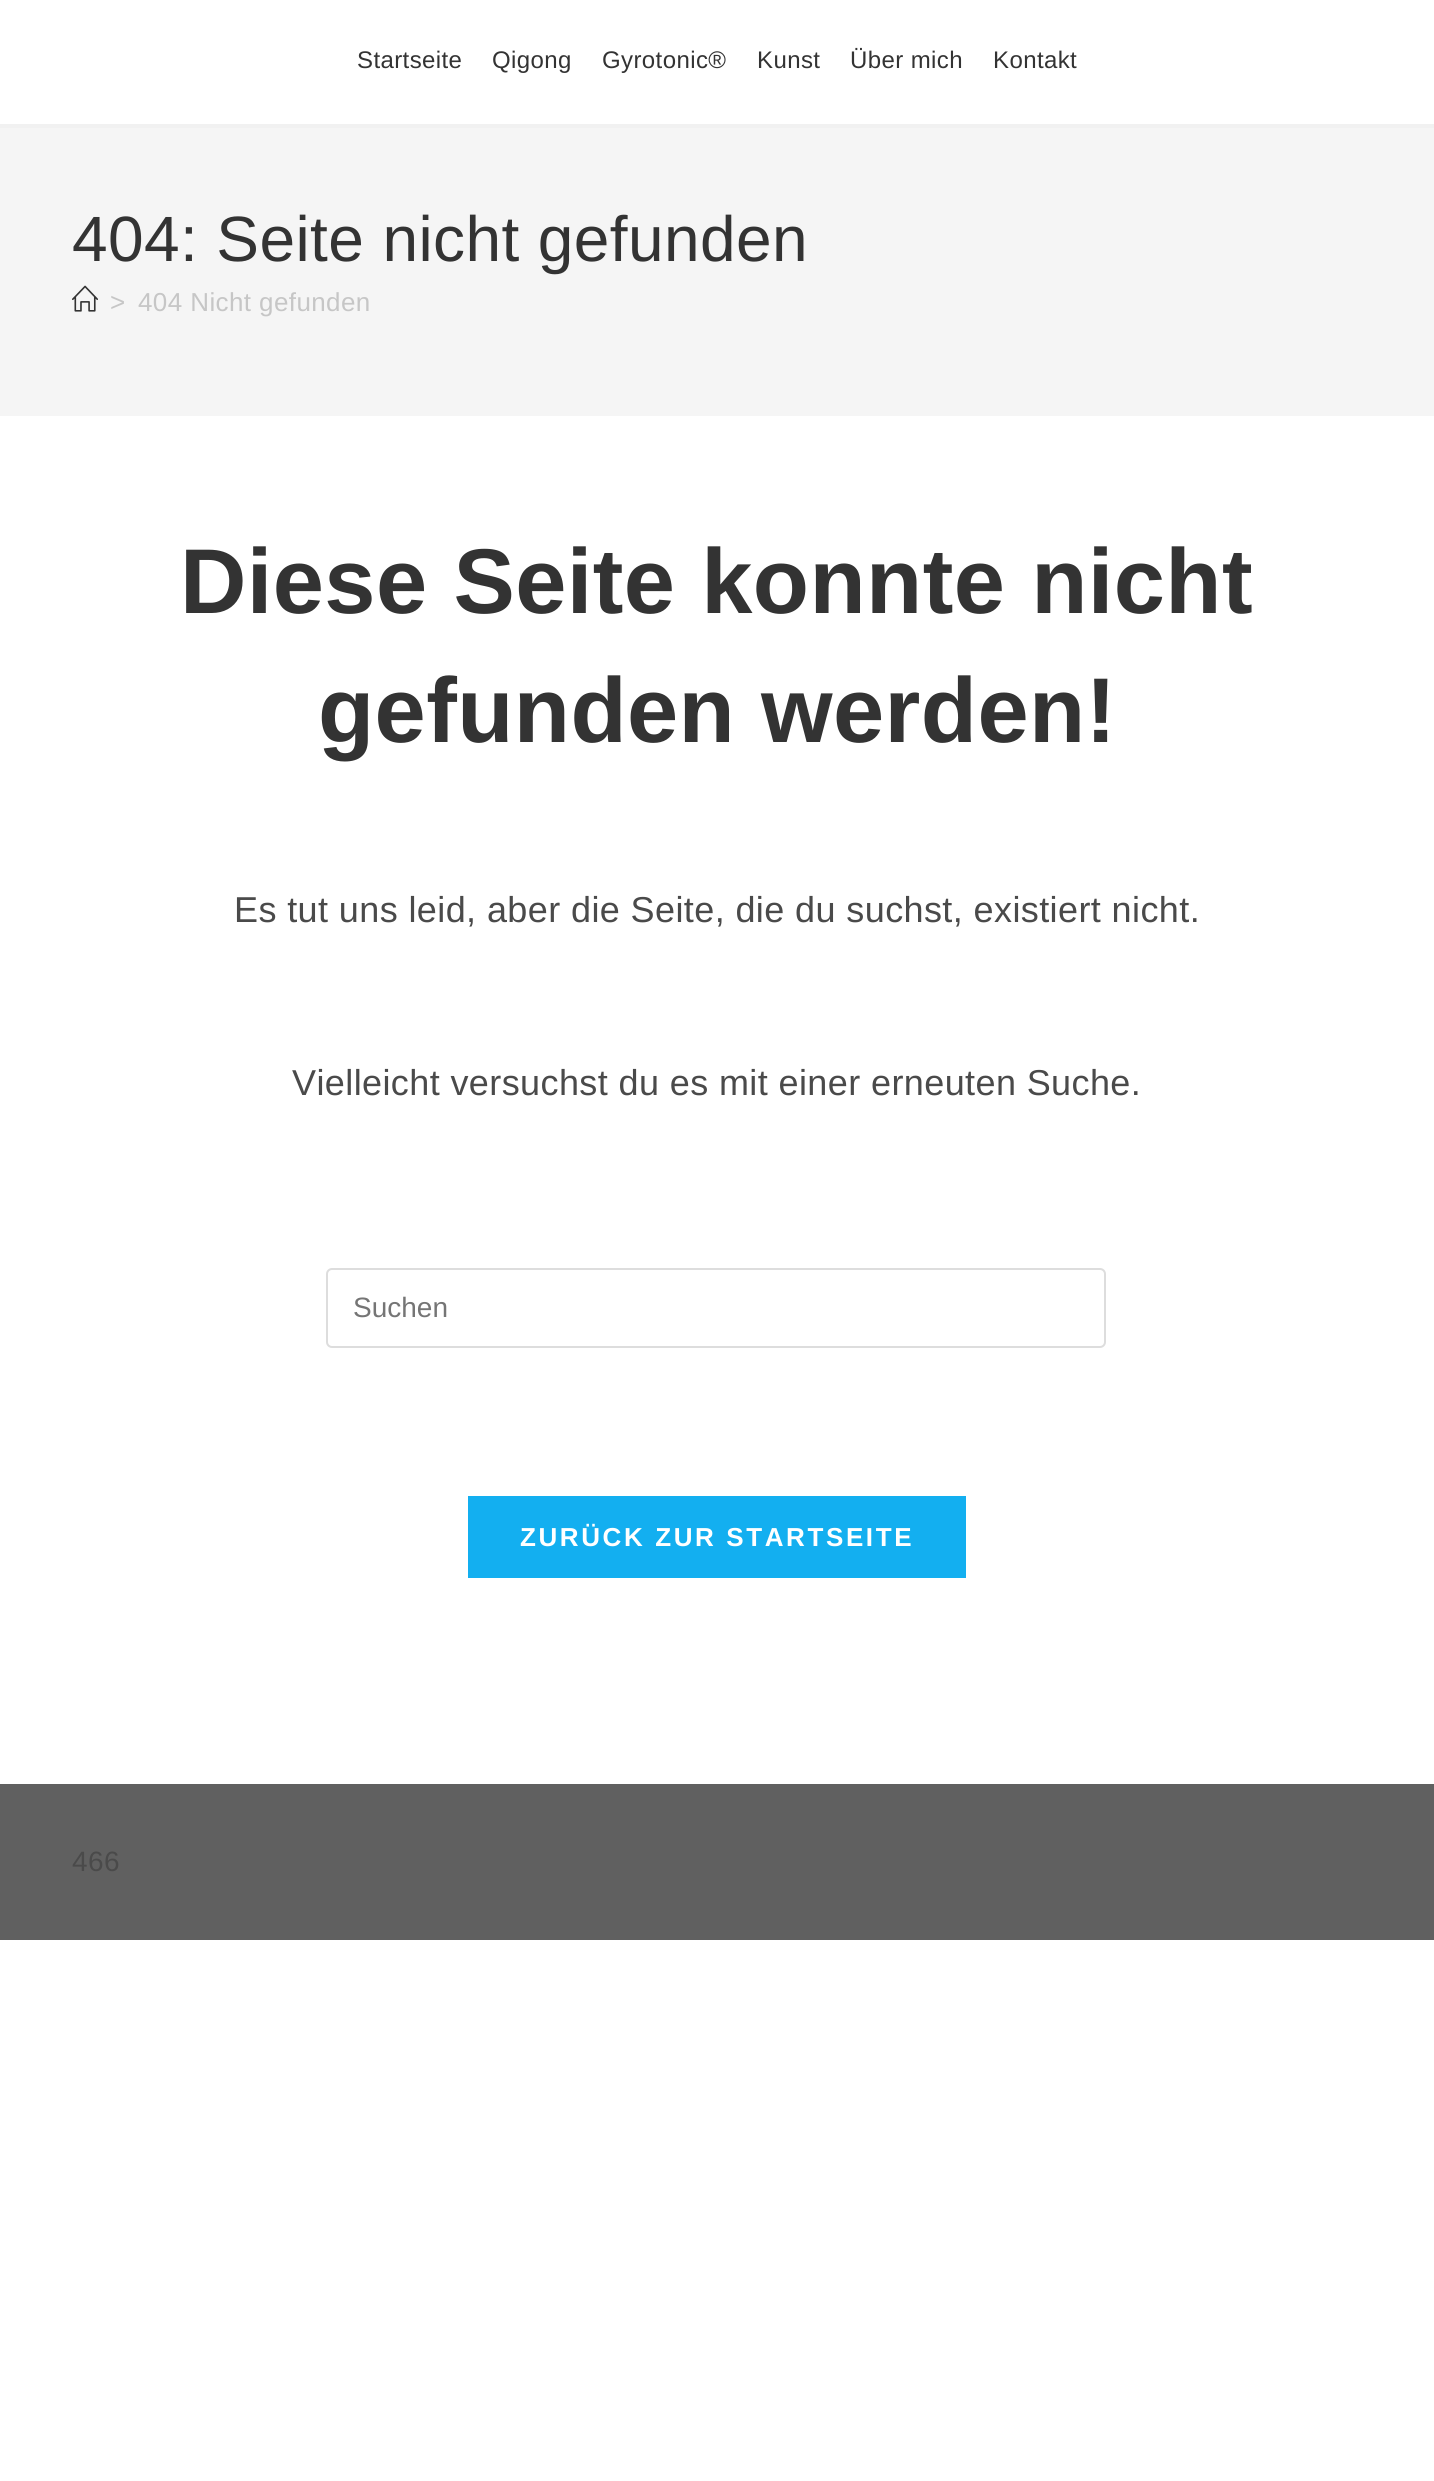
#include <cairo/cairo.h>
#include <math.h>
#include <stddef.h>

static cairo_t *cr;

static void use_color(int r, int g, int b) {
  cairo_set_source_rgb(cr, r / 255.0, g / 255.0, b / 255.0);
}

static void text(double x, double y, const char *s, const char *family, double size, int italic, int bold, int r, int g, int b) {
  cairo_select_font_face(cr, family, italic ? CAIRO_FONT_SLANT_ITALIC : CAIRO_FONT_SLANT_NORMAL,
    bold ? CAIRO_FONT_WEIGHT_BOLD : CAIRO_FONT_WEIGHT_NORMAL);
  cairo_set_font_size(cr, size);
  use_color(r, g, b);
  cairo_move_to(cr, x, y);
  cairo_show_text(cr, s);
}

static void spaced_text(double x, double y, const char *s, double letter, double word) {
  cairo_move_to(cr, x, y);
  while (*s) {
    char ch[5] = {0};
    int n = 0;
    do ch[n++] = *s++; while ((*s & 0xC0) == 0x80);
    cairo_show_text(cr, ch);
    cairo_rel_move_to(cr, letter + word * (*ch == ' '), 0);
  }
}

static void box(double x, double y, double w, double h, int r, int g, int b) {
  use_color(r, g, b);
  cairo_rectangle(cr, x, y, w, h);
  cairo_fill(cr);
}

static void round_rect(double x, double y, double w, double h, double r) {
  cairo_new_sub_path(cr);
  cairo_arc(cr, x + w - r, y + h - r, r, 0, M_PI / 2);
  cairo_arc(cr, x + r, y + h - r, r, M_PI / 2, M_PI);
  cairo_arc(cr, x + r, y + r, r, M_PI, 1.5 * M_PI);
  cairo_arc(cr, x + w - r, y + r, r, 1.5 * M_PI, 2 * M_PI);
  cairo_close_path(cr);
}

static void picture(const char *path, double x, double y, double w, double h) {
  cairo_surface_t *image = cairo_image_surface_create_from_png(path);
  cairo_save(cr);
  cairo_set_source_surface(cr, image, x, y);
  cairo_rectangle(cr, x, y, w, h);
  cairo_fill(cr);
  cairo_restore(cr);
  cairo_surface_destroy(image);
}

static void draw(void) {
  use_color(255, 255, 255);
  cairo_paint(cr);
  box(0, 124, 1434, 4, 241, 241, 241);
  box(0, 128, 1434, 288, 245, 245, 245);
  picture("img_01.png", 72, 285, 26, 27);
  round_rect(327, 1269, 778, 78, 5);
  use_color(221, 221, 221);
  cairo_stroke(cr);
  box(468, 1496, 498, 82, 19, 175, 240);
  box(0, 1784, 1434, 156, 96, 96, 96);
  cairo_select_font_face(cr, "Liberation Sans", CAIRO_FONT_SLANT_NORMAL, CAIRO_FONT_WEIGHT_NORMAL);
  cairo_set_font_size(cr, 24);
  use_color(51, 51, 51);
  spaced_text(357, 68, "Startseite", 0.4, 0);
  spaced_text(492, 68, "Qigong", 0.4, 0);
  spaced_text(602, 68, "Gyrotonic®", 0.4, 0);
  spaced_text(757, 68, "Kunst", 0.4, 0);
  spaced_text(850, 68, "Über mich", 0.4, 0);
  spaced_text(993, 68, "Kontakt", 0.4, 0);
  cairo_set_font_size(cr, 64);
  spaced_text(72, 261, "404: Seite nicht gefunden", 0.4, 0);
  cairo_set_font_size(cr, 26);
  use_color(198, 198, 198);
  spaced_text(110, 311, ">", 0.4, 0);
  spaced_text(138, 311, "404 Nicht gefunden", 0.4, 0);
  cairo_select_font_face(cr, "Liberation Sans", CAIRO_FONT_SLANT_NORMAL, CAIRO_FONT_WEIGHT_BOLD);
  cairo_set_font_size(cr, 92);
  use_color(51, 51, 51);
  spaced_text(180, 613, "Diese Seite konnte nicht", 0.4, 0);
  spaced_text(318, 742, "gefunden werden!", 0.4, 0);
  cairo_select_font_face(cr, "Liberation Sans", CAIRO_FONT_SLANT_NORMAL, CAIRO_FONT_WEIGHT_NORMAL);
  cairo_set_font_size(cr, 36);
  use_color(74, 74, 74);
  spaced_text(234, 922, "Es tut uns leid, aber die Seite, die du suchst, existiert nicht.", 0.4, 0);
  spaced_text(292, 1095, "Vielleicht versuchst du es mit einer erneuten Suche.", 0.4, 0);
  text(353, 1317, "Suchen", "Liberation Sans", 28, 0, 0, 117, 117, 117);
  cairo_select_font_face(cr, "Liberation Sans", CAIRO_FONT_SLANT_NORMAL, CAIRO_FONT_WEIGHT_BOLD);
  cairo_set_font_size(cr, 26);
  use_color(255, 255, 255);
  spaced_text(520, 1546, "ZURÜCK ZUR STARTSEITE", 2.6, 0);
  cairo_select_font_face(cr, "Liberation Sans", CAIRO_FONT_SLANT_NORMAL, CAIRO_FONT_WEIGHT_NORMAL);
  cairo_set_font_size(cr, 28);
  use_color(74, 74, 74);
  spaced_text(72, 1871, "466", 0.4, 0);
}

int main(void) {
  cairo_surface_t *surface = cairo_image_surface_create(CAIRO_FORMAT_RGB24, 1434, 2481);
  cr = cairo_create(surface);
  cairo_font_options_t *options = cairo_font_options_create();
  cairo_font_options_set_hint_metrics(options, CAIRO_HINT_METRICS_OFF);
  cairo_font_options_set_hint_style(options, CAIRO_HINT_STYLE_NONE);
  cairo_set_font_options(cr, options);
  cairo_set_miter_limit(cr, 4);
  draw();
  cairo_surface_write_to_png(surface, "out.png");
  cairo_font_options_destroy(options);
  cairo_destroy(cr);
  cairo_surface_destroy(surface);
  return 0;
}
